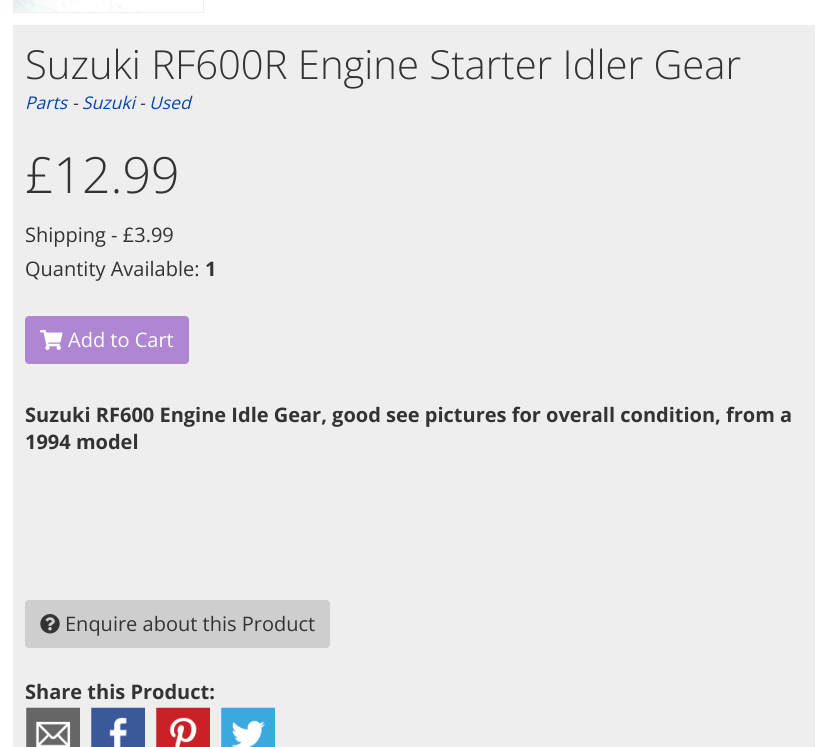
#include <cairo/cairo.h>
#include <math.h>
#include <stddef.h>

static cairo_t *cr;

static void use_color(int r, int g, int b) {
  cairo_set_source_rgb(cr, r / 255.0, g / 255.0, b / 255.0);
}

static void text(double x, double y, const char *s, const char *family, double size, int italic, int bold, int r, int g, int b) {
  cairo_select_font_face(cr, family, italic ? CAIRO_FONT_SLANT_ITALIC : CAIRO_FONT_SLANT_NORMAL,
    bold ? CAIRO_FONT_WEIGHT_BOLD : CAIRO_FONT_WEIGHT_NORMAL);
  cairo_set_font_size(cr, size);
  use_color(r, g, b);
  cairo_move_to(cr, x, y);
  cairo_show_text(cr, s);
}

static void box(double x, double y, double w, double h, int r, int g, int b) {
  use_color(r, g, b);
  cairo_rectangle(cr, x, y, w, h);
  cairo_fill(cr);
}

static void round_rect(double x, double y, double w, double h, double r) {
  cairo_new_sub_path(cr);
  cairo_arc(cr, x + w - r, y + h - r, r, 0, M_PI / 2);
  cairo_arc(cr, x + r, y + h - r, r, M_PI / 2, M_PI);
  cairo_arc(cr, x + r, y + r, r, M_PI, 1.5 * M_PI);
  cairo_arc(cr, x + w - r, y + r, r, 1.5 * M_PI, 2 * M_PI);
  cairo_close_path(cr);
}

static void picture(const char *path, double x, double y, double w, double h) {
  cairo_surface_t *image = cairo_image_surface_create_from_png(path);
  cairo_save(cr);
  cairo_set_source_surface(cr, image, x, y);
  cairo_rectangle(cr, x, y, w, h);
  cairo_fill(cr);
  cairo_restore(cr);
  cairo_surface_destroy(image);
}

static void draw(void) {
  use_color(255, 255, 255);
  cairo_paint(cr);
  cairo_rectangle(cr, 13.5, -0.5, 190, 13);
  use_color(238, 238, 238);
  cairo_set_line_width(cr, 1);
  cairo_stroke(cr);
  picture("img_01.png", 14, 0, 124, 12);
  box(13, 25, 802, 722, 238, 238, 238);
  use_color(174, 134, 210);
  round_rect(25, 316, 164, 48, 4);
  cairo_fill(cr);
  picture("img_02.png", 40, 330, 23, 20);
  use_color(206, 206, 206);
  round_rect(25, 600, 305, 48, 4);
  cairo_fill(cr);
  picture("img_03.png", 40, 614, 20, 20);
  picture("img_04.png", 26, 707, 54, 40);
  picture("img_05.png", 91, 707, 54, 40);
  picture("img_06.png", 156, 707, 54, 40);
  picture("img_07.png", 221, 707, 54, 40);
  text(25, 79, "Suzuki RF600R Engine Starter Idler Gear", "Open Sans Light", 40, 0, 0, 51, 51, 51);
  text(25, 109, "Parts", "Open Sans", 17.5, 1, 0, 6, 69, 173);
  text(72, 109, "-", "Open Sans", 17.5, 1, 0, 51, 51, 51);
  text(82, 109, "Suzuki", "Open Sans", 17.5, 1, 0, 6, 69, 173);
  text(139, 109, "-", "Open Sans", 17.5, 1, 0, 51, 51, 51);
  text(149, 109, "Used", "Open Sans", 17.5, 1, 0, 6, 69, 173);
  text(25, 193, "£12.99", "Open Sans Light", 50, 0, 0, 51, 51, 51);
  text(25, 242, "Shipping - £3.99", "Open Sans", 20, 0, 0, 51, 51, 51);
  text(25, 276, "Quantity Available:", "Open Sans", 20, 0, 0, 51, 51, 51);
  text(205, 276, "1", "Open Sans", 20, 0, 1, 51, 51, 51);
  text(68, 347, "Add to Cart", "Open Sans", 20, 0, 0, 255, 255, 255);
  text(25, 422, "Suzuki RF600 Engine Idle Gear, good see pictures for overall condition, from a", "Open Sans", 20, 0, 1, 51, 51, 51);
  text(25, 449, "1994 model", "Open Sans", 20, 0, 1, 51, 51, 51);
  text(65, 631, "Enquire about this Product", "Open Sans", 20, 0, 0, 51, 51, 51);
  text(25, 699, "Share this Product:", "Open Sans", 20, 0, 1, 51, 51, 51);
}

int main(void) {
  cairo_surface_t *surface = cairo_image_surface_create(CAIRO_FORMAT_RGB24, 827, 747);
  cr = cairo_create(surface);
  cairo_font_options_t *options = cairo_font_options_create();
  cairo_font_options_set_hint_metrics(options, CAIRO_HINT_METRICS_OFF);
  cairo_font_options_set_hint_style(options, CAIRO_HINT_STYLE_NONE);
  cairo_set_font_options(cr, options);
  cairo_set_miter_limit(cr, 4);
  draw();
  cairo_surface_write_to_png(surface, "out.png");
  cairo_font_options_destroy(options);
  cairo_destroy(cr);
  cairo_surface_destroy(surface);
  return 0;
}
